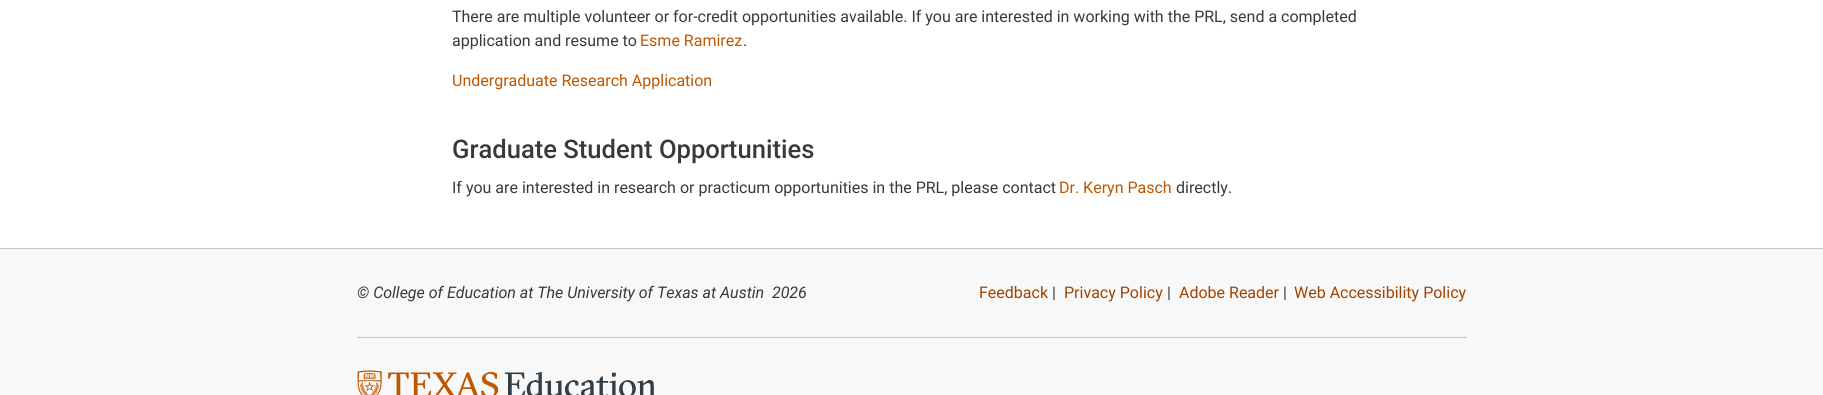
#include <cairo/cairo.h>
#include <math.h>
#include <stddef.h>

static cairo_t *cr;

static void use_color(int r, int g, int b) {
  cairo_set_source_rgb(cr, r / 255.0, g / 255.0, b / 255.0);
}

static void text(double x, double y, const char *s, const char *family, double size, int italic, int bold, int r, int g, int b) {
  cairo_select_font_face(cr, family, italic ? CAIRO_FONT_SLANT_ITALIC : CAIRO_FONT_SLANT_NORMAL,
    bold ? CAIRO_FONT_WEIGHT_BOLD : CAIRO_FONT_WEIGHT_NORMAL);
  cairo_set_font_size(cr, size);
  use_color(r, g, b);
  cairo_move_to(cr, x, y);
  cairo_show_text(cr, s);
}

static void box(double x, double y, double w, double h, int r, int g, int b) {
  use_color(r, g, b);
  cairo_rectangle(cr, x, y, w, h);
  cairo_fill(cr);
}

static void picture(const char *path, double x, double y, double w, double h) {
  cairo_surface_t *image = cairo_image_surface_create_from_png(path);
  cairo_save(cr);
  cairo_set_source_surface(cr, image, x, y);
  cairo_rectangle(cr, x, y, w, h);
  cairo_fill(cr);
  cairo_restore(cr);
  cairo_surface_destroy(image);
}

static void draw(void) {
  use_color(248, 248, 248);
  cairo_paint(cr);
  box(0, 0, 1823, 248, 255, 255, 255);
  box(0, 248, 1823, 1, 197, 197, 197);
  box(357, 337, 1110, 1, 197, 197, 197);
  picture("img_01.png", 357, 370, 297, 25);
  text(452, 22, "There are multiple volunteer or for-credit opportunities available. If you are interested in working with the PRL, send a completed", "Roboto", 16, 0, 0, 55, 58, 60);
  text(452, 46, "application and resume to", "Roboto", 16, 0, 0, 55, 58, 60);
  text(640, 46, "Esme Ramirez", "Roboto", 16, 0, 0, 191, 87, 0);
  text(743, 46, ".", "Roboto", 16, 0, 0, 55, 58, 60);
  text(452, 86, "Undergraduate Research Application", "Roboto", 16, 0, 0, 191, 87, 0);
  text(452, 158, "Graduate Student Opportunities", "Roboto Medium", 25.6, 0, 0, 55, 58, 60);
  text(452, 193, "If you are interested in research or practicum opportunities in the PRL, please contact", "Roboto", 16, 0, 0, 55, 58, 60);
  text(1059, 193, "Dr. Keryn Pasch", "Roboto", 16, 0, 0, 191, 87, 0);
  text(1176, 193, "directly.", "Roboto", 16, 0, 0, 55, 58, 60);
  text(357, 298, "© College of Education at The University of Texas at Austin  2026", "Roboto", 16, 1, 0, 55, 58, 60);
  text(979, 298, "Feedback", "Roboto", 16, 0, 0, 160, 68, 0);
  text(1052, 298, "|", "Roboto", 16, 0, 0, 55, 58, 60);
  text(1064, 298, "Privacy Policy", "Roboto", 16, 0, 0, 160, 68, 0);
  text(1167, 298, "|", "Roboto", 16, 0, 0, 55, 58, 60);
  text(1179, 298, "Adobe Reader", "Roboto", 16, 0, 0, 160, 68, 0);
  text(1283, 298, "|", "Roboto", 16, 0, 0, 55, 58, 60);
  text(1294, 298, "Web Accessibility Policy", "Roboto", 16, 0, 0, 160, 68, 0);
}

int main(void) {
  cairo_surface_t *surface = cairo_image_surface_create(CAIRO_FORMAT_RGB24, 1823, 395);
  cr = cairo_create(surface);
  cairo_font_options_t *options = cairo_font_options_create();
  cairo_font_options_set_hint_metrics(options, CAIRO_HINT_METRICS_OFF);
  cairo_font_options_set_hint_style(options, CAIRO_HINT_STYLE_NONE);
  cairo_set_font_options(cr, options);
  cairo_set_miter_limit(cr, 4);
  draw();
  cairo_surface_write_to_png(surface, "out.png");
  cairo_font_options_destroy(options);
  cairo_destroy(cr);
  cairo_surface_destroy(surface);
  return 0;
}
